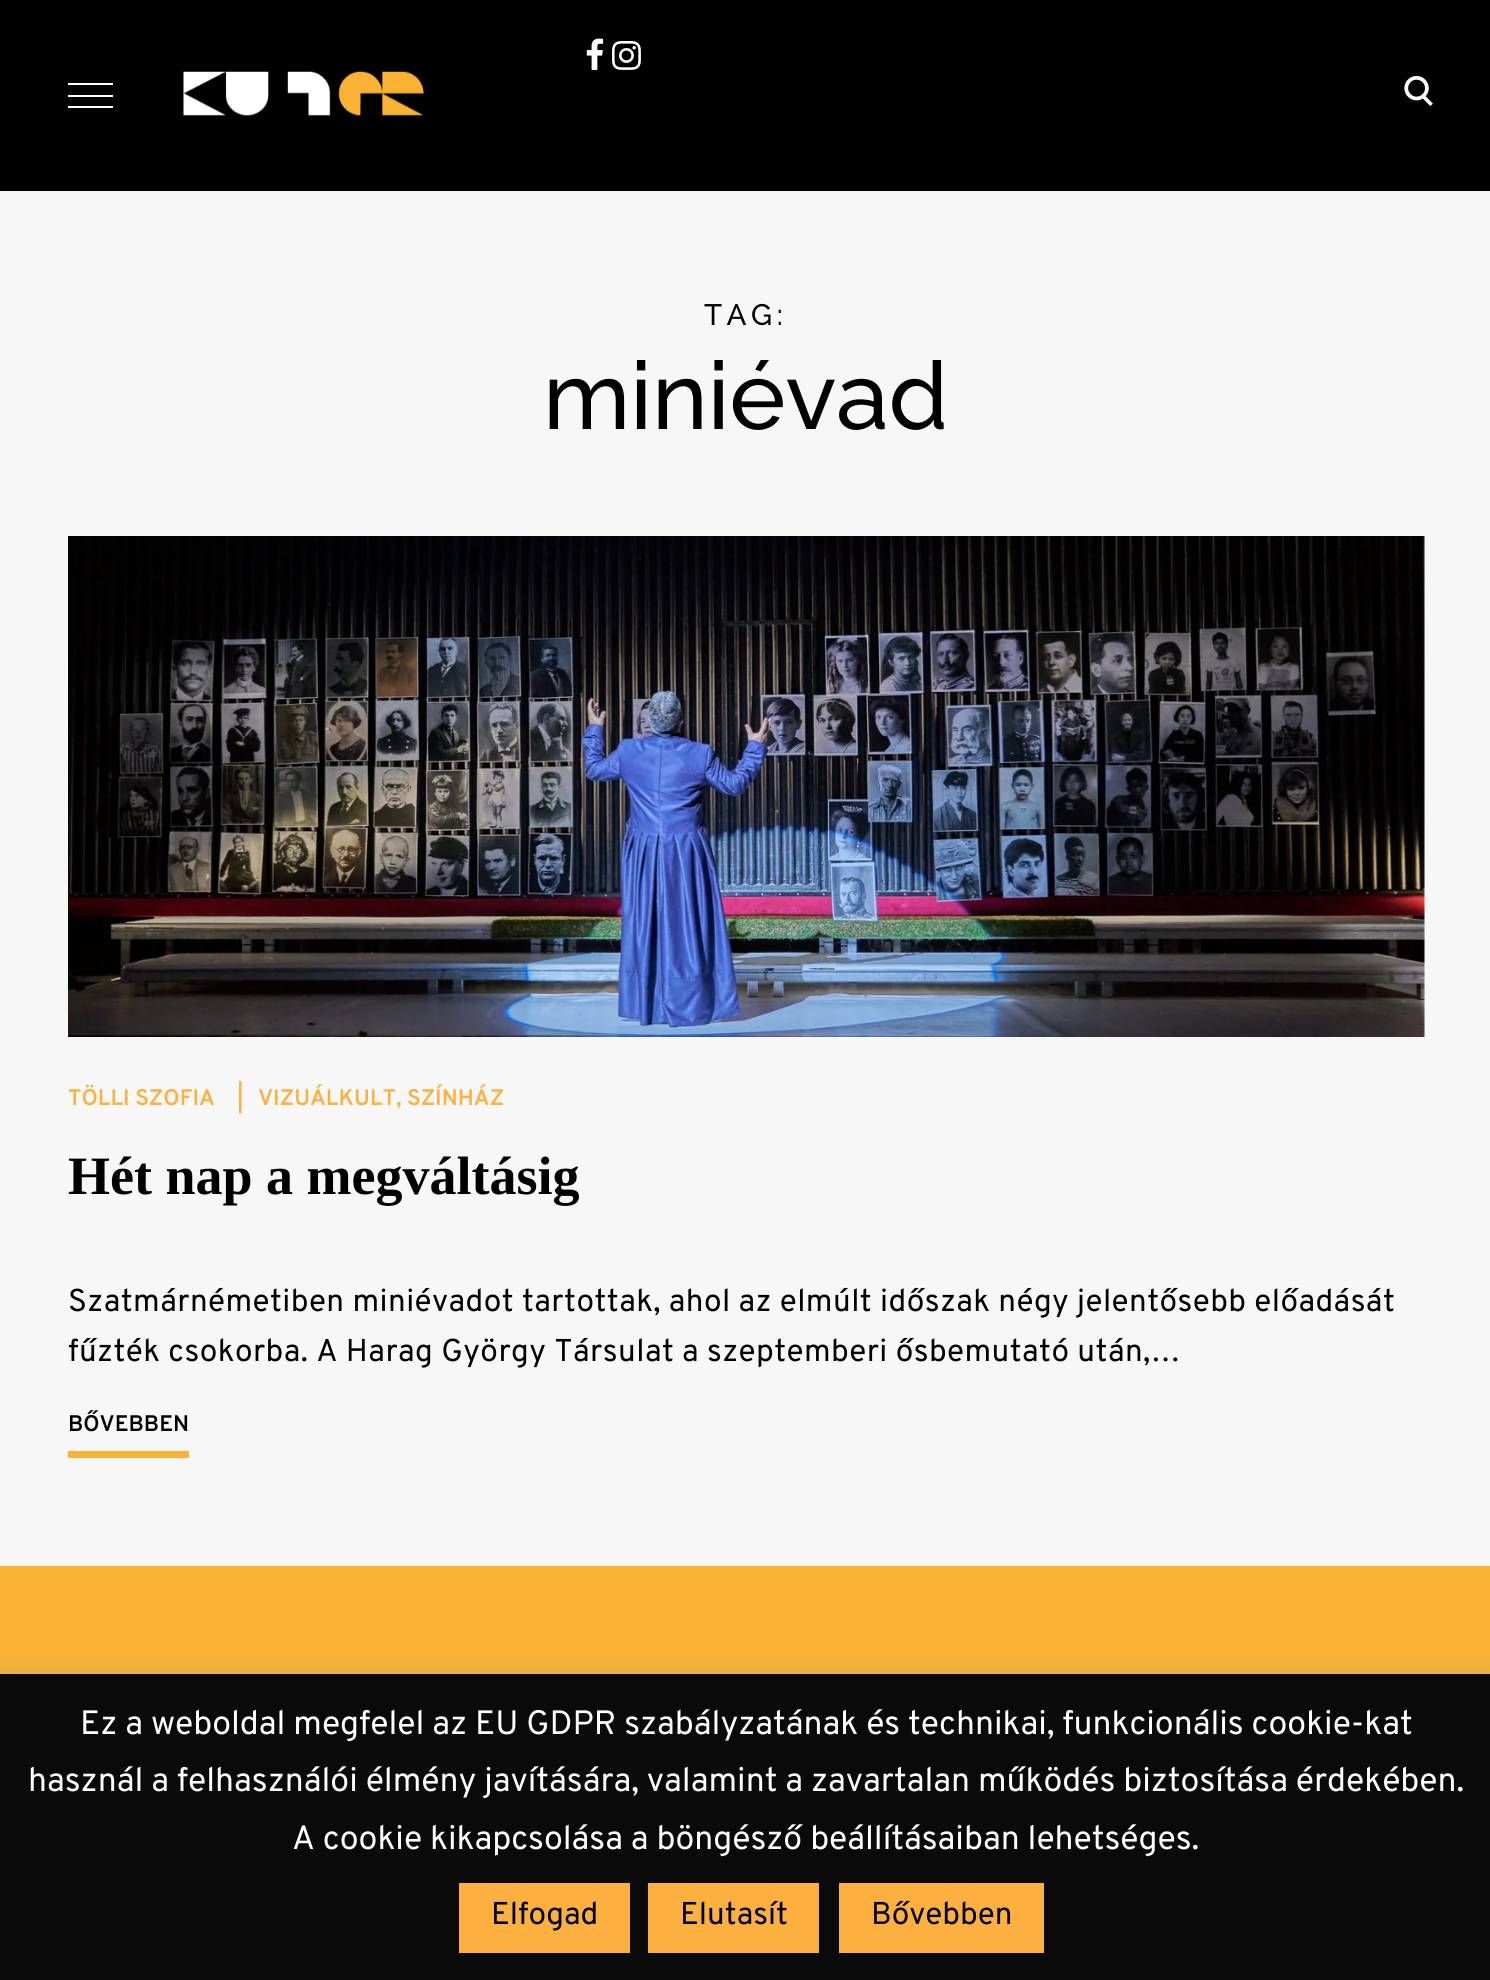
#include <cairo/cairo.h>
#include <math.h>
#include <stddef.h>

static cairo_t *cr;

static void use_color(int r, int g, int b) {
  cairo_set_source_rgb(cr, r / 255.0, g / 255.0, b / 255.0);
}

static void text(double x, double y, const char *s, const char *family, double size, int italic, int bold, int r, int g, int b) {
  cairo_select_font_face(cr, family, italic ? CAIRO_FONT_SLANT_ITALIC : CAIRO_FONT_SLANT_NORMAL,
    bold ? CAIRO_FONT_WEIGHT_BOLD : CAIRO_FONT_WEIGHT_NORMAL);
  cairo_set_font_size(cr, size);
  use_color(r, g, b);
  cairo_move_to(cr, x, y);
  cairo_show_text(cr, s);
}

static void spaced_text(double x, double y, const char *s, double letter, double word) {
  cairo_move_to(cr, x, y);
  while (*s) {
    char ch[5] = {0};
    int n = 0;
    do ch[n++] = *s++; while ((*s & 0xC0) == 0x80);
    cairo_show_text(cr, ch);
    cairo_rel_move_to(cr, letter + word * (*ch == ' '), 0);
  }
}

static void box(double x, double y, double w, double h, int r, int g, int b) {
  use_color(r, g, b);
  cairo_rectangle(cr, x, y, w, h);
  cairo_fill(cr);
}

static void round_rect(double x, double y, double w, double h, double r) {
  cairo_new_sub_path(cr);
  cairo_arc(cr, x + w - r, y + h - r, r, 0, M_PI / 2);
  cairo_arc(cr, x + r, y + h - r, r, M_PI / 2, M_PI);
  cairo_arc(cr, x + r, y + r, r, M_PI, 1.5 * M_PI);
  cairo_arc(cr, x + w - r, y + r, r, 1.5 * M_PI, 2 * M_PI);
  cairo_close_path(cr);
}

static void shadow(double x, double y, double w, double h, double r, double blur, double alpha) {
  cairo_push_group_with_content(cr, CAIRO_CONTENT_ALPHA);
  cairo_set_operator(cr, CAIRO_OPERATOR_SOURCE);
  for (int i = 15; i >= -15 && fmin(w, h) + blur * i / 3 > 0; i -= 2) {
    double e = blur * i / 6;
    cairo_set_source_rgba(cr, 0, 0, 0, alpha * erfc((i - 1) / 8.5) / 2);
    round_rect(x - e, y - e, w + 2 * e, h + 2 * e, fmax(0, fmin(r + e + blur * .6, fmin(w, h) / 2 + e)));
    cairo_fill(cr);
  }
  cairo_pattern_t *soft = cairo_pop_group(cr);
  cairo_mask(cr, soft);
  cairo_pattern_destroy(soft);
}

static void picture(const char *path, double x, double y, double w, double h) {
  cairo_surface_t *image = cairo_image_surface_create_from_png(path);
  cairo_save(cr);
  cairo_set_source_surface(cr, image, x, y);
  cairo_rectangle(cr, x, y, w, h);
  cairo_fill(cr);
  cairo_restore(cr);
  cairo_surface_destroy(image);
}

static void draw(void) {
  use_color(247, 247, 247);
  cairo_paint(cr);
  box(0, 0, 1490, 191, 0, 0, 0);
  picture("img_01.png", 586, 38, 18, 32);
  picture("img_02.png", 612, 41, 29, 29);
  box(68, 95, 45, 2, 255, 255, 255);
  box(68, 83, 45, 2, 255, 255, 255);
  box(68, 106, 45, 2, 255, 255, 255);
  picture("img_03.png", 183, 71, 241, 45);
  picture("img_04.png", 1404, 76, 29, 30);
  picture("img_05.png", 68, 536, 1357, 501);
  box(68, 1451, 121, 7, 249, 178, 51);
  box(0, 1566, 1490, 108, 249, 178, 51);
  use_color(172, 171, 171);
  shadow(0, 1672, 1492, 306, 0, 11, 0.3);
  box(0, 1674, 1490, 306, 10, 10, 10);
  box(459, 1883, 171, 70, 251, 176, 64);
  box(648, 1883, 171, 70, 251, 176, 64);
  box(839, 1883, 205, 70, 251, 176, 64);
  cairo_select_font_face(cr, "Raleway Medium", CAIRO_FONT_SLANT_NORMAL, CAIRO_FONT_WEIGHT_NORMAL);
  cairo_set_font_size(cr, 29.5);
  use_color(0, 0, 0);
  spaced_text(704, 325, "TAG:", 4.5, 0);
  text(543, 429, "miniévad", "Raleway Medium", 94.5, 0, 0, 0, 0, 0);
  text(68, 1105, "TÖLLI SZOFIA", "Overpass SemiBold", 22.5, 0, 0, 251, 176, 64);
  text(237, 1105, "|", "Overpass SemiBold", 22.5, 0, 0, 251, 176, 64);
  text(258, 1105, "VIZUÁLKULT, SZÍNHÁZ", "Overpass SemiBold", 22.5, 0, 0, 251, 176, 64);
  text(68, 1194, "Hét nap a megváltásig", "Liberation Serif", 54, 0, 1, 0, 0, 0);
  cairo_select_font_face(cr, "Overpass", CAIRO_FONT_SLANT_NORMAL, CAIRO_FONT_WEIGHT_NORMAL);
  cairo_set_font_size(cr, 31.5);
  spaced_text(68, 1311, "Szatmárnémetiben miniévadot tartottak, ahol az elmúlt időszak négy jelentősebb előadását", 0.45, 0);
  spaced_text(68, 1361, "fűzték csokorba. A Harag György Társulat a szeptemberi ősbemutató után,…", 0.45, 0);
  text(68, 1431, "BŐVEBBEN", "Overpass SemiBold", 22.5, 0, 0, 0, 0, 0);
  text(80, 1734, "Ez a weboldal megfelel az EU GDPR szabályzatának és technikai, funkcionális cookie-kat", "Overpass", 33.75, 0, 0, 255, 255, 255);
  text(28, 1791, "használ a felhasználói élmény javítására, valamint a zavartalan működés biztosítása érdekében.", "Overpass", 33.75, 0, 0, 255, 255, 255);
  text(292, 1849, "A cookie kikapcsolása a böngésző beállításaiban lehetséges.", "Overpass", 33.75, 0, 0, 255, 255, 255);
  text(491, 1924, "Elfogad", "Overpass", 31.5, 0, 0, 0, 0, 0);
  text(680, 1924, "Elutasít", "Overpass", 31.5, 0, 0, 0, 0, 0);
  text(871, 1924, "Bővebben", "Overpass", 31.5, 0, 0, 0, 0, 0);
}

int main(void) {
  cairo_surface_t *surface = cairo_image_surface_create(CAIRO_FORMAT_RGB24, 1490, 1980);
  cr = cairo_create(surface);
  cairo_font_options_t *options = cairo_font_options_create();
  cairo_font_options_set_hint_metrics(options, CAIRO_HINT_METRICS_OFF);
  cairo_font_options_set_hint_style(options, CAIRO_HINT_STYLE_NONE);
  cairo_set_font_options(cr, options);
  cairo_set_miter_limit(cr, 4);
  draw();
  cairo_surface_write_to_png(surface, "out.png");
  cairo_font_options_destroy(options);
  cairo_destroy(cr);
  cairo_surface_destroy(surface);
  return 0;
}
